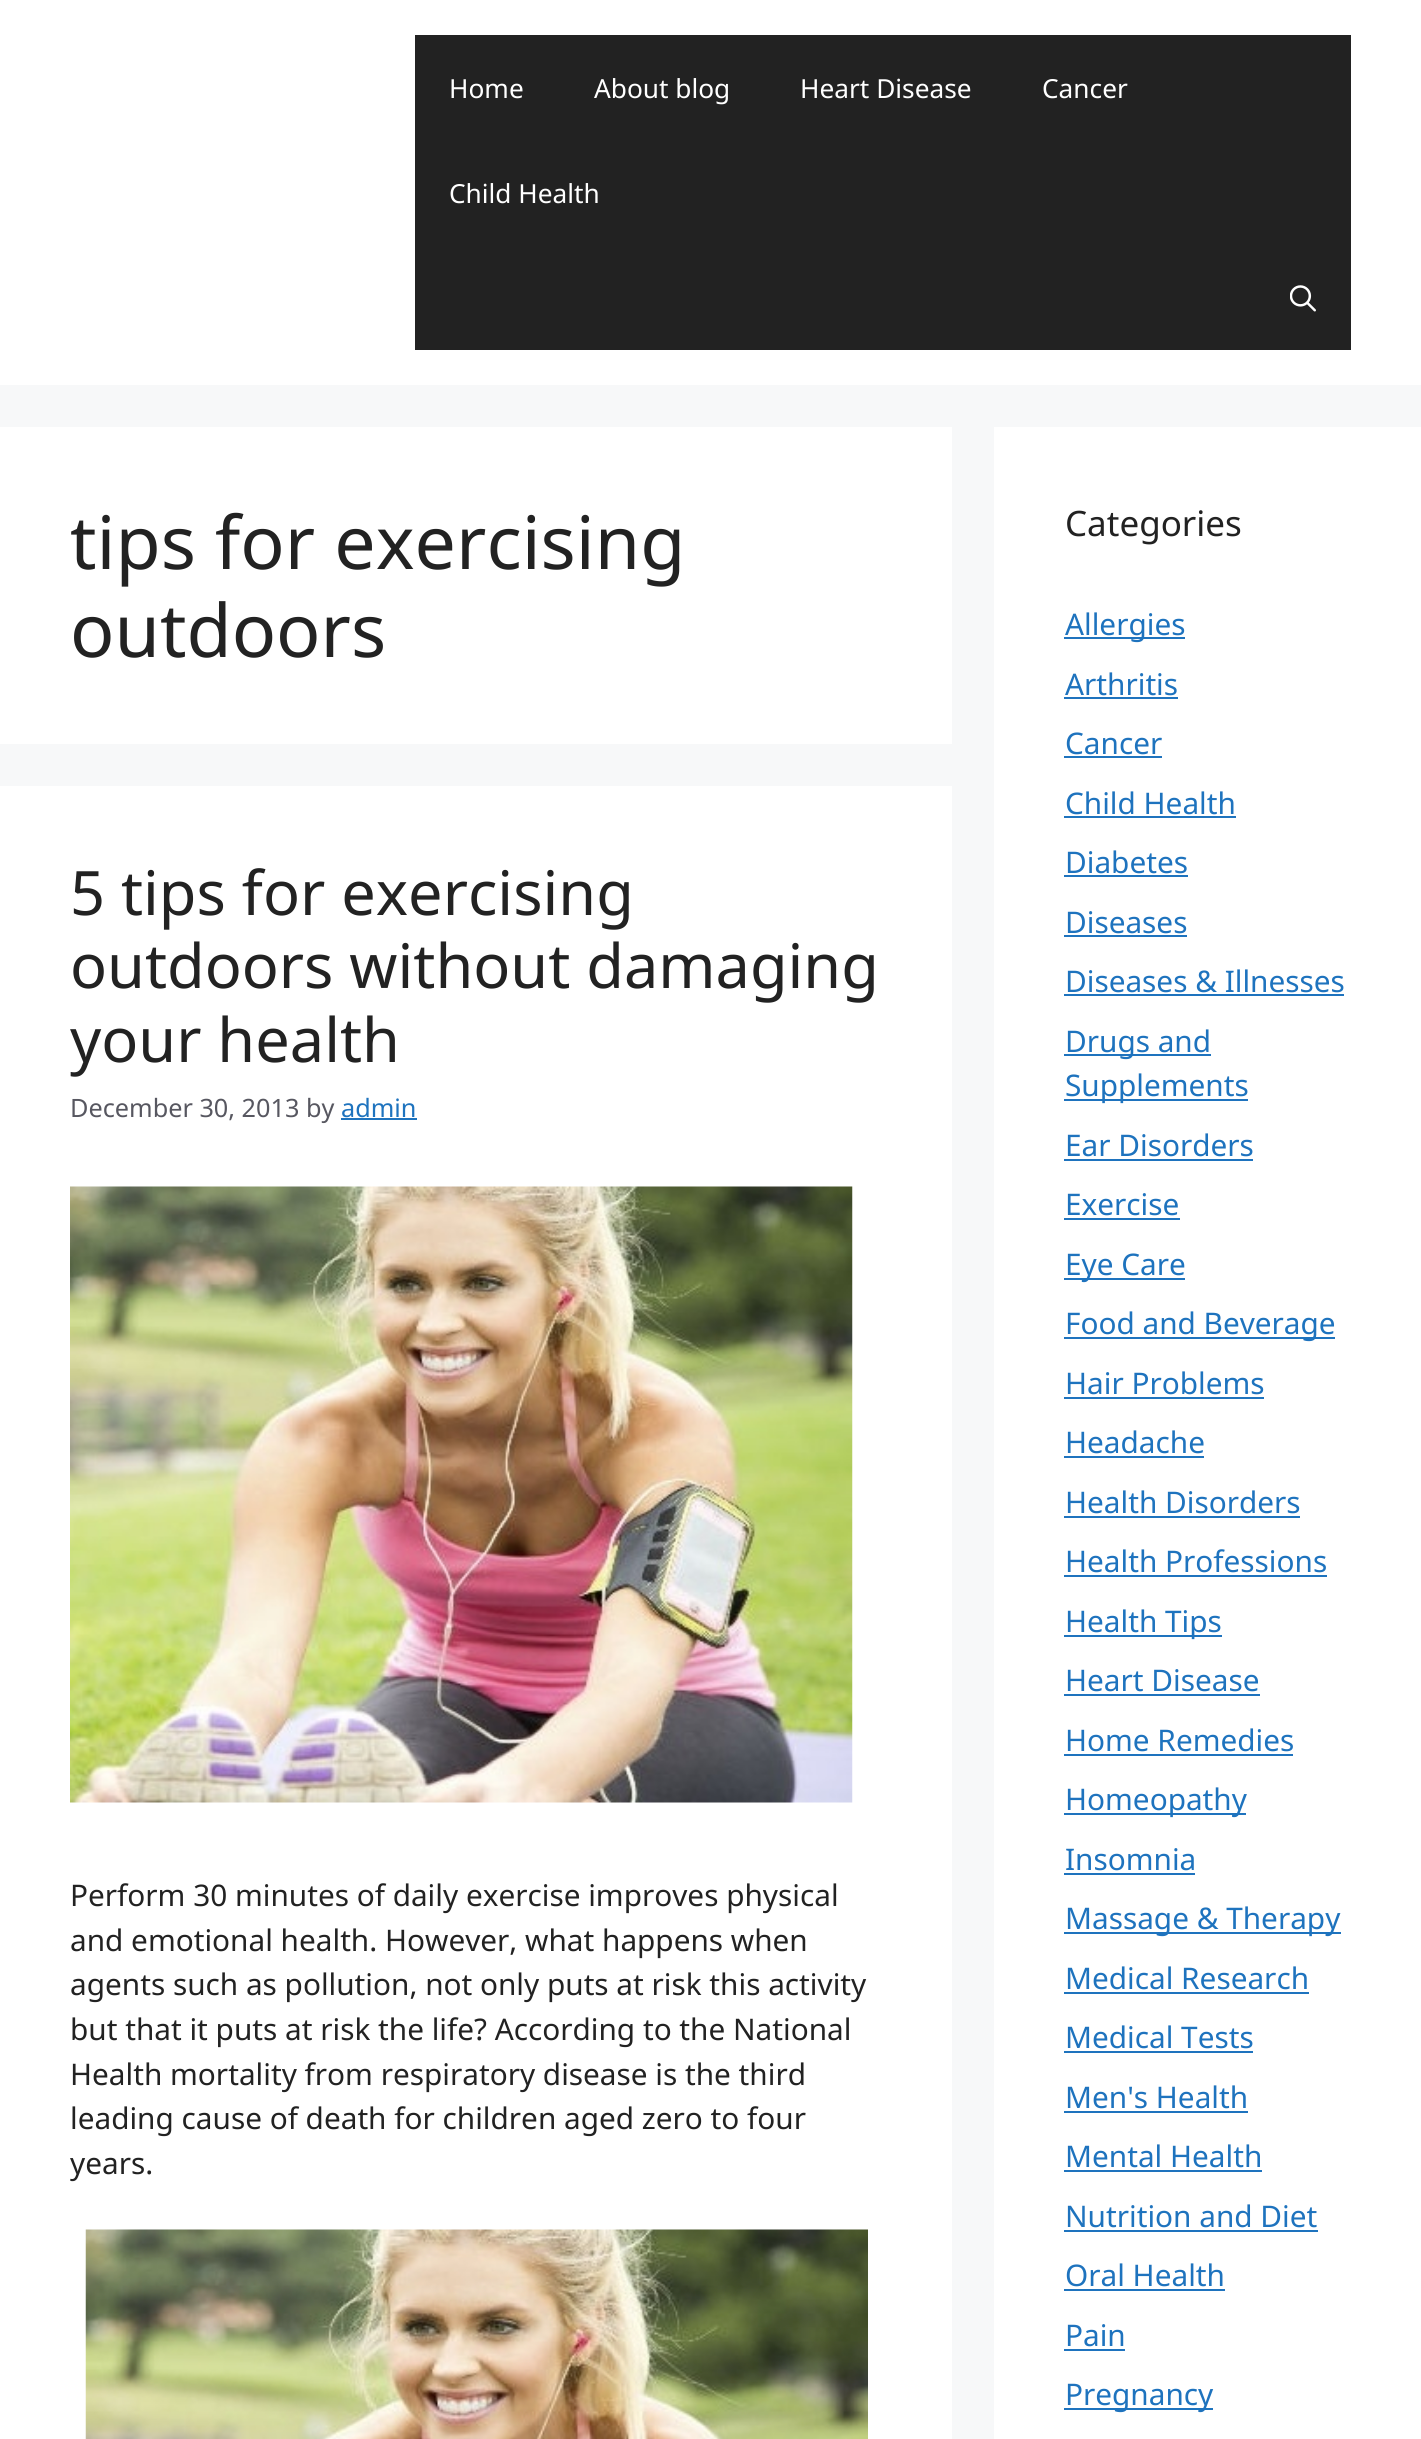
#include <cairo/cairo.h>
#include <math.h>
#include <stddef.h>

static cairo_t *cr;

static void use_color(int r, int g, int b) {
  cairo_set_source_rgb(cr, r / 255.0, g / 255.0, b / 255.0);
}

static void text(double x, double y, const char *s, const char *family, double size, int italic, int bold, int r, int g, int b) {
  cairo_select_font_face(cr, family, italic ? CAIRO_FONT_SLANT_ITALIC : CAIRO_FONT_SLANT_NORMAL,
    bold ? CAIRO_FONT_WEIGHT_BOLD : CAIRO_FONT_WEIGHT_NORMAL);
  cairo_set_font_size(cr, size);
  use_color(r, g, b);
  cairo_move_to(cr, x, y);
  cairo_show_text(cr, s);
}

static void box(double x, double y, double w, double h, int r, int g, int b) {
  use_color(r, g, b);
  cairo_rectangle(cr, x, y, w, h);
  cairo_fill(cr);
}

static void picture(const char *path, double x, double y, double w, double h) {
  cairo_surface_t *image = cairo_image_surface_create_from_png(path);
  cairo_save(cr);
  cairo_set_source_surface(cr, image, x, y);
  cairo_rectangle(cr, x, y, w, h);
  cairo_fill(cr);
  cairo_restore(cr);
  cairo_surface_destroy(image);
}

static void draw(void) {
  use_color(247, 248, 249);
  cairo_paint(cr);
  box(0, 0, 1421, 385, 255, 255, 255);
  box(415, 35, 936, 315, 34, 34, 34);
  picture("img_01.png", 1290, 285, 26, 27);
  box(0, 427, 952, 317, 255, 255, 255);
  box(0, 786, 952, 1653, 255, 255, 255);
  box(341, 1118, 76, 2, 30, 115, 190);
  picture("img_02.png", 70, 1186, 783, 617);
  picture("img_03.png", 85, 2229, 783, 210);
  box(994, 427, 427, 2012, 255, 255, 255);
  box(1064, 637, 121, 2, 30, 115, 190);
  box(1064, 697, 114, 2, 30, 115, 190);
  box(1064, 756, 98, 2, 30, 115, 190);
  box(1064, 816, 172, 2, 30, 115, 190);
  box(1064, 875, 124, 2, 30, 115, 190);
  box(1064, 935, 123, 2, 30, 115, 190);
  box(1064, 994, 280, 2, 30, 115, 190);
  box(1064, 1054, 147, 2, 30, 115, 190);
  box(1064, 1099, 184, 2, 30, 115, 190);
  box(1064, 1159, 189, 2, 30, 115, 190);
  box(1064, 1218, 116, 2, 30, 115, 190);
  box(1064, 1278, 121, 2, 30, 115, 190);
  box(1064, 1337, 271, 2, 30, 115, 190);
  box(1064, 1397, 200, 2, 30, 115, 190);
  box(1064, 1456, 140, 2, 30, 115, 190);
  box(1064, 1516, 236, 2, 30, 115, 190);
  box(1064, 1575, 263, 2, 30, 115, 190);
  box(1064, 1635, 158, 2, 30, 115, 190);
  box(1064, 1694, 196, 2, 30, 115, 190);
  box(1064, 1754, 229, 2, 30, 115, 190);
  box(1064, 1813, 182, 2, 30, 115, 190);
  box(1064, 1873, 131, 2, 30, 115, 190);
  box(1064, 1932, 277, 2, 30, 115, 190);
  box(1064, 1992, 245, 2, 30, 115, 190);
  box(1064, 2051, 189, 2, 30, 115, 190);
  box(1064, 2111, 184, 2, 30, 115, 190);
  box(1064, 2170, 198, 2, 30, 115, 190);
  box(1064, 2230, 254, 2, 30, 115, 190);
  box(1064, 2289, 161, 2, 30, 115, 190);
  box(1064, 2349, 61, 2, 30, 115, 190);
  box(1064, 2408, 149, 2, 30, 115, 190);
  text(449, 98, "Home", "Noto Sans", 26.25, 0, 0, 255, 255, 255);
  text(594, 98, "About blog", "Noto Sans", 26.25, 0, 0, 255, 255, 255);
  text(800, 98, "Heart Disease", "Noto Sans", 26.25, 0, 0, 255, 255, 255);
  text(1042, 98, "Cancer", "Noto Sans", 26.25, 0, 0, 255, 255, 255);
  text(449, 203, "Child Health", "Noto Sans", 26.25, 0, 0, 255, 255, 255);
  text(70, 569, "tips for exercising", "Noto Sans", 73.5, 0, 0, 34, 34, 34);
  text(70, 657, "outdoors", "Noto Sans", 73.5, 0, 0, 34, 34, 34);
  text(70, 915, "5 tips for exercising", "Noto Sans", 61.25, 0, 0, 34, 34, 34);
  text(70, 988, "outdoors without damaging", "Noto Sans", 61.25, 0, 0, 34, 34, 34);
  text(70, 1062, "your health", "Noto Sans", 61.25, 0, 0, 34, 34, 34);
  text(70, 1117, "December 30, 2013 by", "Noto Sans", 25.25, 0, 0, 87, 87, 96);
  text(341, 1117, "admin", "Noto Sans", 25.25, 0, 0, 30, 115, 190);
  text(70, 1906, "Perform 30 minutes of daily exercise improves physical", "Noto Sans", 29.75, 0, 0, 34, 34, 34);
  text(70, 1951, "and emotional health. However, what happens when", "Noto Sans", 29.75, 0, 0, 34, 34, 34);
  text(70, 1995, "agents such as pollution, not only puts at risk this activity", "Noto Sans", 29.75, 0, 0, 34, 34, 34);
  text(70, 2040, "but that it puts at risk the life? According to the National", "Noto Sans", 29.75, 0, 0, 34, 34, 34);
  text(70, 2085, "Health mortality from respiratory disease is the third", "Noto Sans", 29.75, 0, 0, 34, 34, 34);
  text(70, 2129, "leading cause of death for children aged zero to four", "Noto Sans", 29.75, 0, 0, 34, 34, 34);
  text(70, 2174, "years.", "Noto Sans", 29.75, 0, 0, 34, 34, 34);
  text(1065, 536, "Categories", "Noto Sans", 35, 0, 0, 34, 34, 34);
  text(1065, 635, "Allergies", "Noto Sans", 29.75, 0, 0, 30, 115, 190);
  text(1065, 695, "Arthritis", "Noto Sans", 29.75, 0, 0, 30, 115, 190);
  text(1065, 754, "Cancer", "Noto Sans", 29.75, 0, 0, 30, 115, 190);
  text(1065, 814, "Child Health", "Noto Sans", 29.75, 0, 0, 30, 115, 190);
  text(1065, 873, "Diabetes", "Noto Sans", 29.75, 0, 0, 30, 115, 190);
  text(1065, 933, "Diseases", "Noto Sans", 29.75, 0, 0, 30, 115, 190);
  text(1065, 992, "Diseases & Illnesses", "Noto Sans", 29.75, 0, 0, 30, 115, 190);
  text(1065, 1052, "Drugs and", "Noto Sans", 29.75, 0, 0, 30, 115, 190);
  text(1065, 1096, "Supplements", "Noto Sans", 29.75, 0, 0, 30, 115, 190);
  text(1065, 1156, "Ear Disorders", "Noto Sans", 29.75, 0, 0, 30, 115, 190);
  text(1065, 1215, "Exercise", "Noto Sans", 29.75, 0, 0, 30, 115, 190);
  text(1065, 1275, "Eye Care", "Noto Sans", 29.75, 0, 0, 30, 115, 190);
  text(1065, 1334, "Food and Beverage", "Noto Sans", 29.75, 0, 0, 30, 115, 190);
  text(1065, 1394, "Hair Problems", "Noto Sans", 29.75, 0, 0, 30, 115, 190);
  text(1065, 1453, "Headache", "Noto Sans", 29.75, 0, 0, 30, 115, 190);
  text(1065, 1513, "Health Disorders", "Noto Sans", 29.75, 0, 0, 30, 115, 190);
  text(1065, 1572, "Health Professions", "Noto Sans", 29.75, 0, 0, 30, 115, 190);
  text(1065, 1632, "Health Tips", "Noto Sans", 29.75, 0, 0, 30, 115, 190);
  text(1065, 1691, "Heart Disease", "Noto Sans", 29.75, 0, 0, 30, 115, 190);
  text(1065, 1751, "Home Remedies", "Noto Sans", 29.75, 0, 0, 30, 115, 190);
  text(1065, 1810, "Homeopathy", "Noto Sans", 29.75, 0, 0, 30, 115, 190);
  text(1065, 1870, "Insomnia", "Noto Sans", 29.75, 0, 0, 30, 115, 190);
  text(1065, 1929, "Massage & Therapy", "Noto Sans", 29.75, 0, 0, 30, 115, 190);
  text(1065, 1989, "Medical Research", "Noto Sans", 29.75, 0, 0, 30, 115, 190);
  text(1065, 2048, "Medical Tests", "Noto Sans", 29.75, 0, 0, 30, 115, 190);
  text(1065, 2108, "Men's Health", "Noto Sans", 29.75, 0, 0, 30, 115, 190);
  text(1065, 2167, "Mental Health", "Noto Sans", 29.75, 0, 0, 30, 115, 190);
  text(1065, 2227, "Nutrition and Diet", "Noto Sans", 29.75, 0, 0, 30, 115, 190);
  text(1065, 2286, "Oral Health", "Noto Sans", 29.75, 0, 0, 30, 115, 190);
  text(1065, 2346, "Pain", "Noto Sans", 29.75, 0, 0, 30, 115, 190);
  text(1065, 2405, "Pregnancy", "Noto Sans", 29.75, 0, 0, 30, 115, 190);
}

int main(void) {
  cairo_surface_t *surface = cairo_image_surface_create(CAIRO_FORMAT_RGB24, 1421, 2439);
  cr = cairo_create(surface);
  cairo_font_options_t *options = cairo_font_options_create();
  cairo_font_options_set_hint_metrics(options, CAIRO_HINT_METRICS_OFF);
  cairo_font_options_set_hint_style(options, CAIRO_HINT_STYLE_NONE);
  cairo_set_font_options(cr, options);
  cairo_set_miter_limit(cr, 4);
  draw();
  cairo_surface_write_to_png(surface, "out.png");
  cairo_font_options_destroy(options);
  cairo_destroy(cr);
  cairo_surface_destroy(surface);
  return 0;
}
